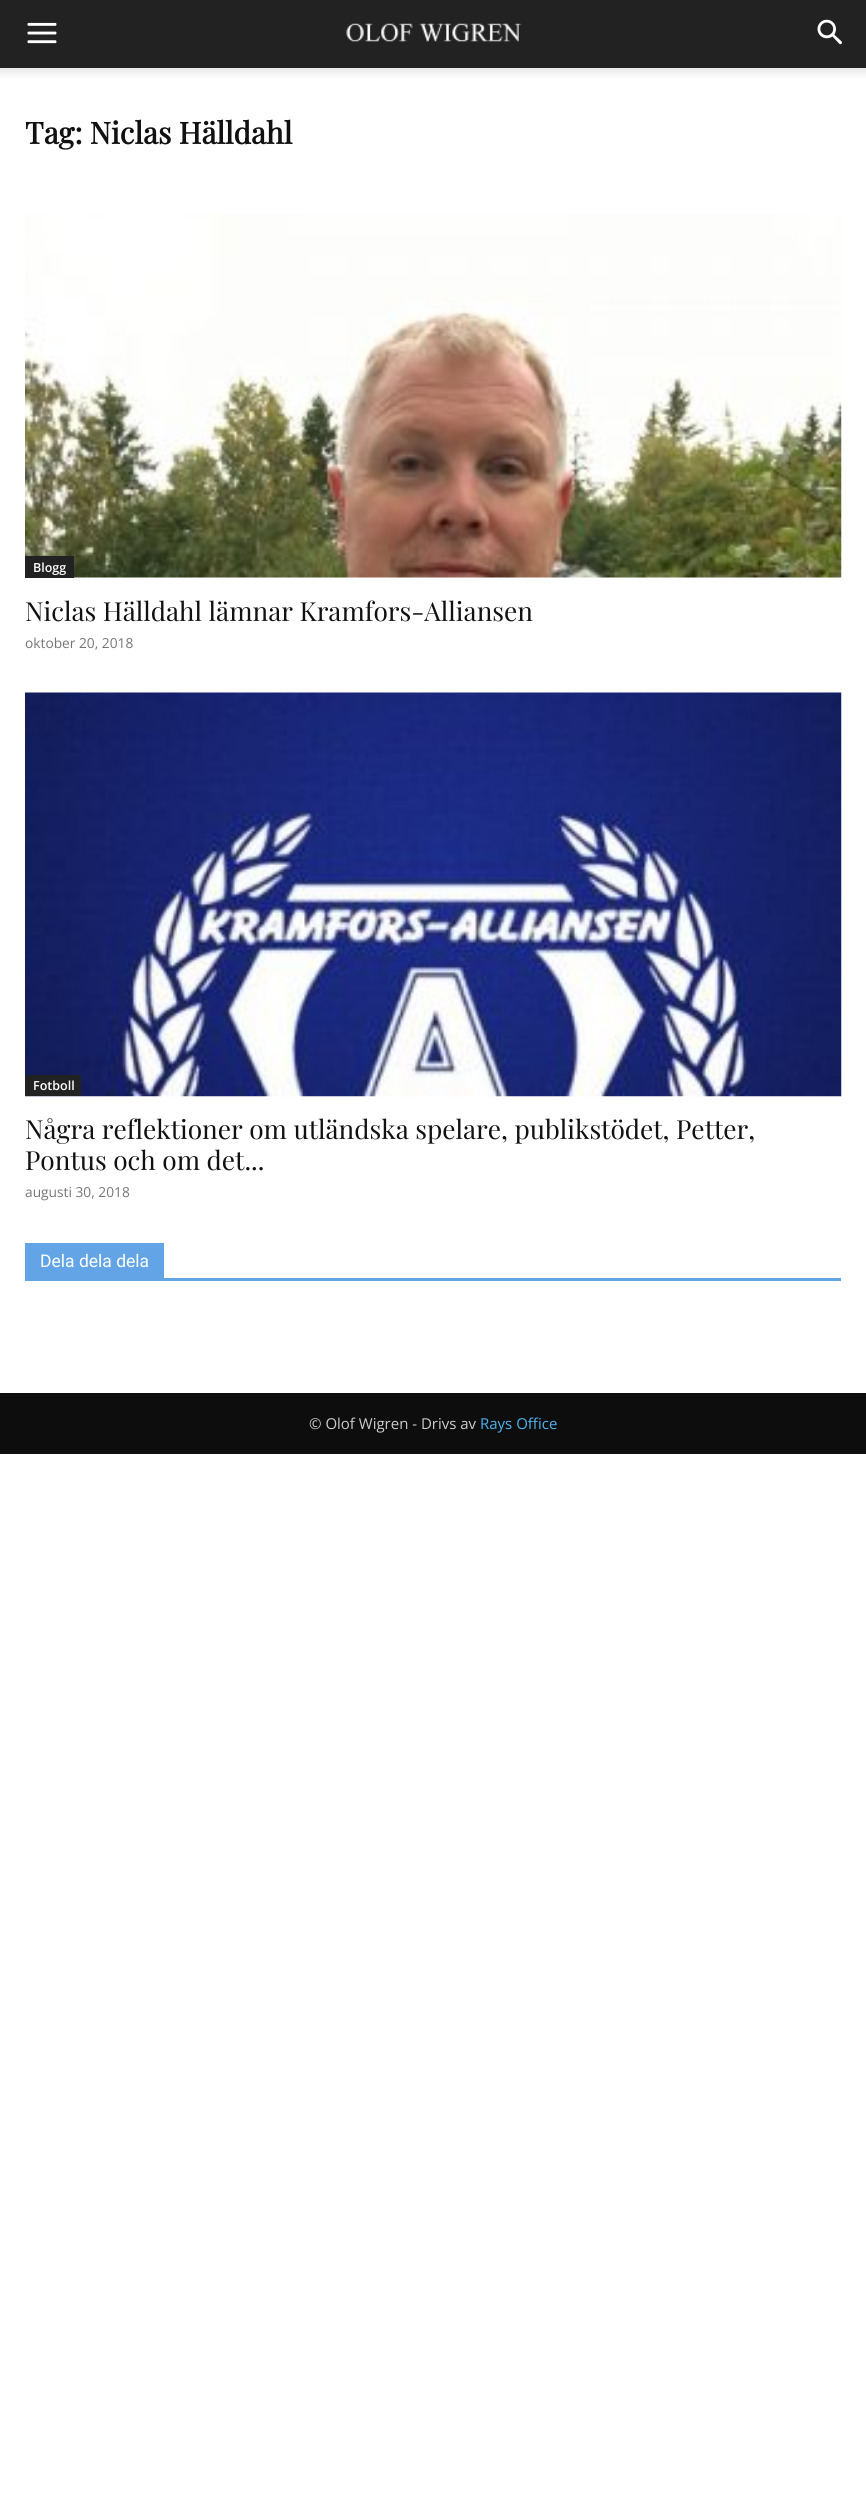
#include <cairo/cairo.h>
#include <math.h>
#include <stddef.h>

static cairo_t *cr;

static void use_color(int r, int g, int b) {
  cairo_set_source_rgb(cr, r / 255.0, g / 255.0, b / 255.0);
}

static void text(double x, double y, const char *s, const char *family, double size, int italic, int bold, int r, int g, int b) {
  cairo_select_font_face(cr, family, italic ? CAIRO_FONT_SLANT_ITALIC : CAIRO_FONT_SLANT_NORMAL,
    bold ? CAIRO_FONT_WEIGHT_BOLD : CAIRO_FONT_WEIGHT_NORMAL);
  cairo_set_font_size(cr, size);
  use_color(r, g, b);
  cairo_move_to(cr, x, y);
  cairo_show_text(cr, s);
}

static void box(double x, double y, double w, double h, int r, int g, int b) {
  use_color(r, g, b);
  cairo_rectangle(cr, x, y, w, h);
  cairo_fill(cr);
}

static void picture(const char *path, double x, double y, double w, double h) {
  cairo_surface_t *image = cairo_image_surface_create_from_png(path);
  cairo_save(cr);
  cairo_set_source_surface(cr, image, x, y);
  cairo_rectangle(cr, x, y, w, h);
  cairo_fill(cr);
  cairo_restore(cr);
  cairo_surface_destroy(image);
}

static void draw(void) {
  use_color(255, 255, 255);
  cairo_paint(cr);
  box(0, 0, 866, 68, 34, 34, 34);
  picture("img_01.png", 27, 22, 30, 22);
  picture("img_02.png", 346, 23, 176, 19);
  picture("img_03.png", 817, 19, 25, 26);
  picture("img_04.png", 0, 68, 866, 10);
  picture("img_05.png", 25, 214, 817, 364);
  box(25, 556, 49, 22, 34, 34, 34);
  picture("img_06.png", 25, 692, 817, 405);
  box(25, 1075, 56, 21, 34, 34, 34);
  box(25, 1278, 816, 3, 98, 164, 229);
  box(25, 1243, 139, 35, 98, 164, 229);
  box(0, 1393, 866, 61, 13, 13, 13);
  text(25, 144, "Tag: Niclas Hälldahl", "Playfair Display", 30, 0, 1, 17, 17, 17);
  text(33, 572, "Blogg", "Open Sans SemiBold", 12.5, 0, 0, 255, 255, 255);
  text(25, 621, "Niclas Hälldahl lämnar Kramfors-Alliansen", "Playfair Display", 26.25, 0, 0, 17, 17, 17);
  text(25, 648, "oktober 20, 2018", "Open Sans", 13.75, 0, 0, 118, 118, 118);
  text(33, 1090, "Fotboll", "Open Sans SemiBold", 12.5, 0, 0, 255, 255, 255);
  text(25, 1139, "Några reflektioner om utländska spelare, publikstödet, Petter,", "Playfair Display", 26.25, 0, 0, 17, 17, 17);
  text(25, 1170, "Pontus och om det...", "Playfair Display", 26.25, 0, 0, 17, 17, 17);
  text(25, 1197, "augusti 30, 2018", "Open Sans", 13.75, 0, 0, 118, 118, 118);
  text(40, 1267, "Dela dela dela", "Roboto", 17.5, 0, 0, 255, 255, 255);
  text(309, 1429, "© Olof Wigren - Drivs av", "Open Sans", 15, 0, 0, 204, 204, 204);
  text(480, 1429, "Rays Office", "Open Sans", 15, 0, 0, 77, 178, 236);
}

int main(void) {
  cairo_surface_t *surface = cairo_image_surface_create(CAIRO_FORMAT_RGB24, 866, 2513);
  cr = cairo_create(surface);
  cairo_font_options_t *options = cairo_font_options_create();
  cairo_font_options_set_hint_metrics(options, CAIRO_HINT_METRICS_OFF);
  cairo_font_options_set_hint_style(options, CAIRO_HINT_STYLE_NONE);
  cairo_set_font_options(cr, options);
  cairo_set_miter_limit(cr, 4);
  draw();
  cairo_surface_write_to_png(surface, "out.png");
  cairo_font_options_destroy(options);
  cairo_destroy(cr);
  cairo_surface_destroy(surface);
  return 0;
}
